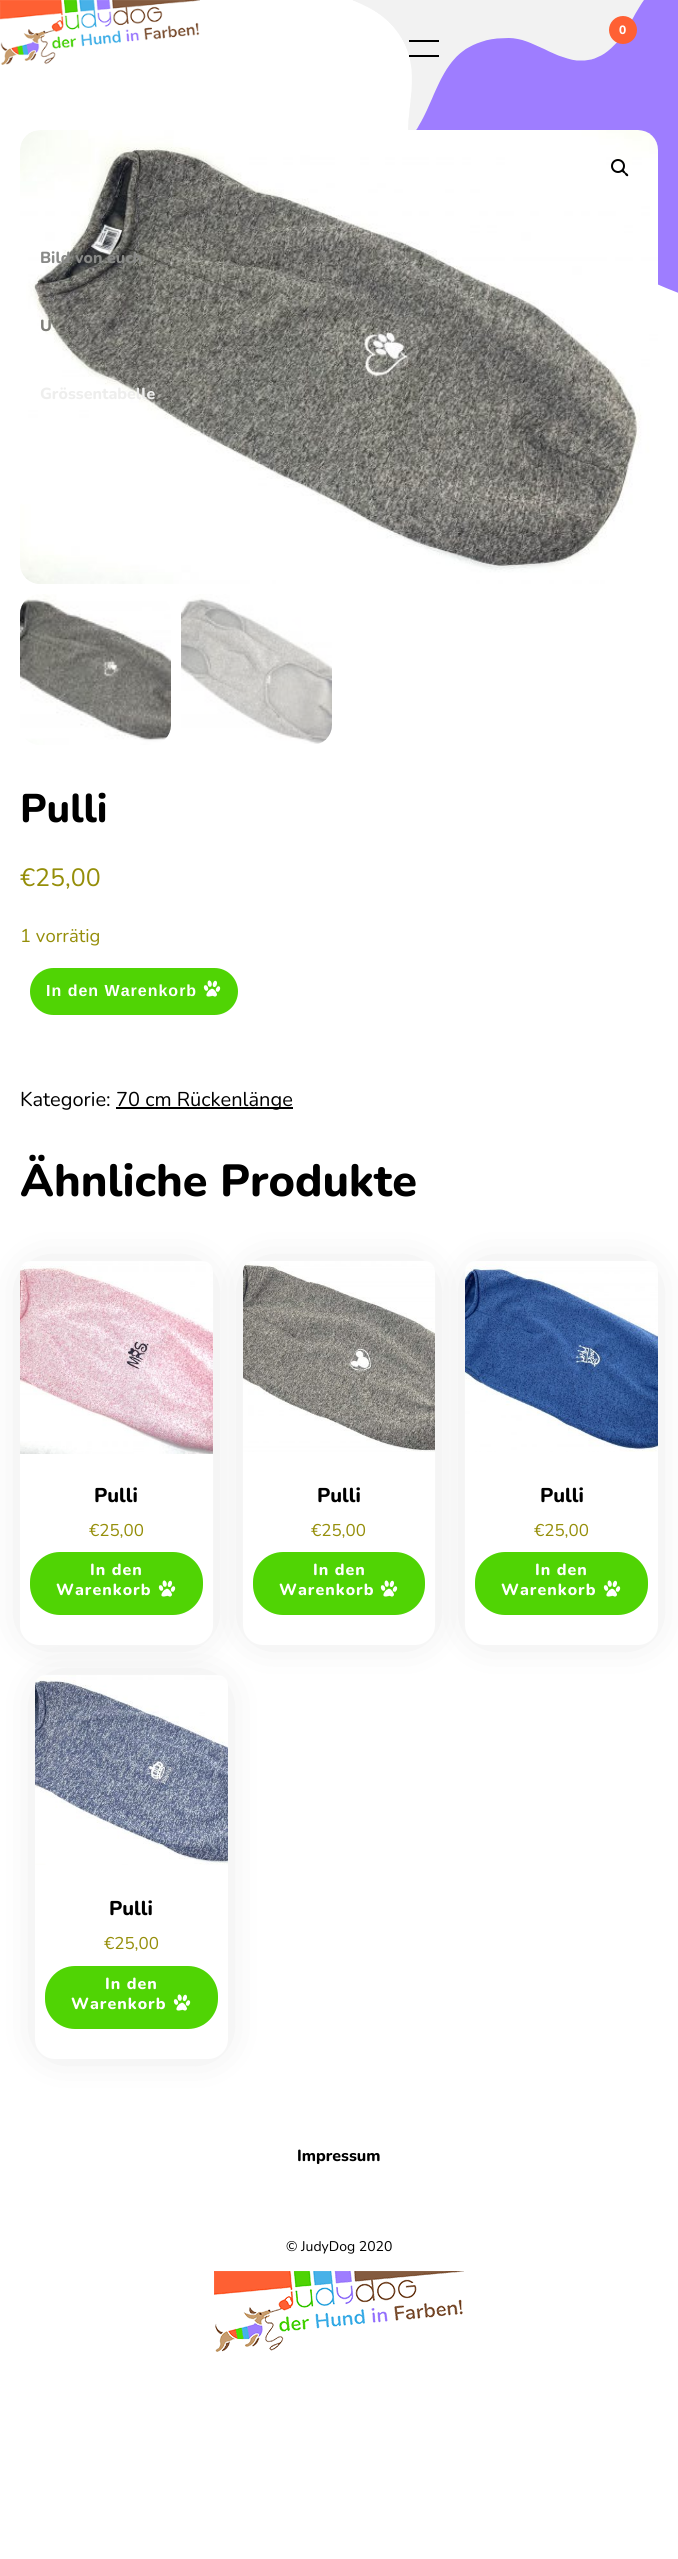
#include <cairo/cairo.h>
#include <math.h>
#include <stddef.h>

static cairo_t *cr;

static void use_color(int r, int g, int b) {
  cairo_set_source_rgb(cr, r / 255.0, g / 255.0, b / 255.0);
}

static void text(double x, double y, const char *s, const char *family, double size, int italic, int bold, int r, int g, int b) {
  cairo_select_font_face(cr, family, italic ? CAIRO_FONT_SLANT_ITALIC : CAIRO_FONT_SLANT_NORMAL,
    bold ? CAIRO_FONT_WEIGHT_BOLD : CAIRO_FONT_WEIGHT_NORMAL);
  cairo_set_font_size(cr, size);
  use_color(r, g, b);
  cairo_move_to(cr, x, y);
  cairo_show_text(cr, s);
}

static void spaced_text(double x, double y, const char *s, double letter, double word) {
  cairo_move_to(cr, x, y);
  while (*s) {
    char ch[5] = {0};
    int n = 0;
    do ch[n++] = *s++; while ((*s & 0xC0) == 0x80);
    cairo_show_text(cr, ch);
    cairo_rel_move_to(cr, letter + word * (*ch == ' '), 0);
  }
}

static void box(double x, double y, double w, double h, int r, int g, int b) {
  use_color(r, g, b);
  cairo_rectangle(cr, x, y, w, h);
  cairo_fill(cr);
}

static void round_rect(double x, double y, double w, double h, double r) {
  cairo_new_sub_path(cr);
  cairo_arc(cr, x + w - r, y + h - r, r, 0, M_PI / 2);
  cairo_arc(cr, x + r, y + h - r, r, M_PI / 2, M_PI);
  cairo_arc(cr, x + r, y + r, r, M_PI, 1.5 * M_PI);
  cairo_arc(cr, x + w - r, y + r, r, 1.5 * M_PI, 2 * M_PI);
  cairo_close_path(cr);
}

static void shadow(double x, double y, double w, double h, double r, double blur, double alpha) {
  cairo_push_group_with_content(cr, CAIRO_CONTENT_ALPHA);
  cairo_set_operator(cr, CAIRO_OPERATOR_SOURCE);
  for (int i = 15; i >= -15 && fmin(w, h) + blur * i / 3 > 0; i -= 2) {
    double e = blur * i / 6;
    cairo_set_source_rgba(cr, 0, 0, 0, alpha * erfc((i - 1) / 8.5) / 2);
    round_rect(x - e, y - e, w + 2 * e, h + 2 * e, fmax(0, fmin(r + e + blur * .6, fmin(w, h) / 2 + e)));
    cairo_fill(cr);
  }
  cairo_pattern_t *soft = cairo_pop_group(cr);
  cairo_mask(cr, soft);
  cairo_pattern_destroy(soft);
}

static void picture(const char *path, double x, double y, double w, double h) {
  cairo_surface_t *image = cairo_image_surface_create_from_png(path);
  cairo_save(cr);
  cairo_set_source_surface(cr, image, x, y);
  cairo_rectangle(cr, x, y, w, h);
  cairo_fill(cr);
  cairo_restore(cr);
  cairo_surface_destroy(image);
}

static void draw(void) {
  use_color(255, 255, 255);
  cairo_paint(cr);
  picture("img_01.png", 338, 0, 340, 293);
  picture("img_02.png", 0, 0, 200, 65);
  use_color(255, 96, 52);
  cairo_arc(cr, 623, 30, 14, 0, 2 * M_PI);
  cairo_fill(cr);
  box(409, 40, 30, 2, 0, 0, 0);
  box(409, 55, 30, 2, 0, 0, 0);
  picture("img_03.png", 20, 130, 638, 454);
  cairo_arc(cr, 618, 166, 6, 0, 2 * M_PI);
  cairo_stroke(cr);
  cairo_new_path(cr);
  cairo_move_to(cr, 622, 170);
  cairo_curve_to(cr, 623.5, 169, 625, 171.5, 625.5, 172.5);
  cairo_curve_to(cr, 626.5, 173, 629, 174.5, 628, 176);
  cairo_curve_to(cr, 626.5, 177, 625, 174.5, 624.5, 173.5);
  cairo_curve_to(cr, 623.5, 173, 621, 171.5, 622, 170);
  cairo_close_path(cr);
  cairo_fill(cr);
  picture("img_04.png", 20, 594, 151, 151);
  picture("img_05.png", 181, 594, 151, 150);
  use_color(80, 212, 4);
  round_rect(30, 968, 208, 47, 23.5);
  cairo_fill(cr);
  picture("img_06.png", 203, 980, 18, 17);
  box(116, 1107, 177, 2, 0, 0, 0);
  cairo_save(cr);
  cairo_set_fill_rule(cr, CAIRO_FILL_RULE_EVEN_ODD);
  cairo_new_path(cr);
  cairo_move_to(cr, 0, 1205);
  cairo_line_to(cr, 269, 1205);
  cairo_line_to(cr, 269, 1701);
  cairo_line_to(cr, 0, 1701);
  cairo_close_path(cr);
  cairo_move_to(cr, 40, 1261);
  cairo_line_to(cr, 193, 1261);
  cairo_curve_to(cr, 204, 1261, 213, 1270, 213, 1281);
  cairo_line_to(cr, 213, 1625);
  cairo_curve_to(cr, 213, 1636, 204, 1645, 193, 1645);
  cairo_line_to(cr, 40, 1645);
  cairo_curve_to(cr, 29, 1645, 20, 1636, 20, 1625);
  cairo_line_to(cr, 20, 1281);
  cairo_curve_to(cr, 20, 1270, 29, 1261, 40, 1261);
  cairo_close_path(cr);
  cairo_clip(cr);
  use_color(0, 0, 0);
  shadow(31, 1272, 171, 362, 9, 22, 0.14);
  cairo_restore(cr);
  picture("img_07.png", 20, 1261, 193, 193);
  use_color(80, 212, 4);
  round_rect(30, 1552, 173, 63, 30);
  cairo_fill(cr);
  picture("img_06.png", 158, 1580, 18, 17);
  use_color(0, 0, 0);
  shadow(254, 1272, 170, 362, 9, 22, 0.14);
  use_color(255, 255, 255);
  round_rect(243, 1261, 192, 384, 20);
  cairo_fill(cr);
  picture("img_08.png", 243, 1261, 192, 191);
  use_color(80, 212, 4);
  round_rect(253, 1552, 172, 63, 30);
  cairo_fill(cr);
  picture("img_06.png", 380, 1580, 18, 17);
  use_color(0, 0, 0);
  shadow(476, 1272, 171, 362, 9, 22, 0.14);
  use_color(255, 255, 255);
  round_rect(465, 1261, 193, 384, 20);
  cairo_fill(cr);
  picture("img_09.png", 465, 1261, 193, 191);
  use_color(80, 212, 4);
  round_rect(475, 1552, 173, 63, 30);
  cairo_fill(cr);
  picture("img_06.png", 603, 1580, 18, 17);
  use_color(0, 0, 0);
  shadow(46, 1686, 171, 362, 9, 22, 0.14);
  use_color(255, 255, 255);
  round_rect(35, 1675, 193, 384, 20);
  cairo_fill(cr);
  picture("img_10.png", 35, 1675, 193, 190);
  use_color(80, 212, 4);
  round_rect(45, 1966, 173, 63, 30);
  cairo_fill(cr);
  picture("img_06.png", 173, 1994, 18, 17);
  picture("img_11.png", 214, 2271, 250, 81);
  text(619, 34, "0", "Nunito ExtraBold", 12, 0, 0, 255, 255, 255);
  text(40, 263, "Bild von euch", "Nunito ExtraBold", 16, 0, 0, 137, 138, 136);
  text(40, 331, "U", "Nunito ExtraBold", 16, 0, 0, 126, 126, 120);
  text(40, 399, "Grössentabelle", "Nunito ExtraBold", 16, 0, 0, 238, 238, 237);
  text(20, 822, "Pulli", "Nunito ExtraBold", 40, 0, 0, 0, 0, 0);
  text(20, 886, "€25,00", "Nunito", 25, 0, 0, 149, 142, 9);
  text(20, 942, "1 vorrätig", "Nunito", 18.5, 0, 0, 149, 142, 9);
  cairo_select_font_face(cr, "Liberation Sans", CAIRO_FONT_SLANT_NORMAL, CAIRO_FONT_WEIGHT_BOLD);
  cairo_set_font_size(cr, 16);
  use_color(255, 255, 255);
  spaced_text(46, 996, "In den Warenkorb", 1, 0);
  text(20, 1106, "Kategorie:", "Nunito", 20, 0, 0, 0, 0, 0);
  text(116, 1106, "70 cm Rückenlänge", "Nunito", 20, 0, 0, 0, 0, 0);
  text(20, 1196, "Ähnliche Produkte", "Nunito ExtraBold", 45, 0, 0, 0, 0, 0);
  text(94, 1502, "Pulli", "Nunito ExtraBold", 20, 0, 0, 0, 0, 0);
  text(89, 1536, "€25,00", "Nunito", 17, 0, 0, 149, 142, 9);
  cairo_select_font_face(cr, "Nunito ExtraBold", CAIRO_FONT_SLANT_NORMAL, CAIRO_FONT_WEIGHT_NORMAL);
  cairo_set_font_size(cr, 16);
  use_color(255, 255, 255);
  spaced_text(90, 1575, "In den", 1, 0);
  spaced_text(56, 1595, "Warenkorb", 1, 0);
  text(317, 1502, "Pulli", "Nunito ExtraBold", 20, 0, 0, 0, 0, 0);
  text(311, 1536, "€25,00", "Nunito", 17, 0, 0, 149, 142, 9);
  cairo_select_font_face(cr, "Nunito ExtraBold", CAIRO_FONT_SLANT_NORMAL, CAIRO_FONT_WEIGHT_NORMAL);
  cairo_set_font_size(cr, 16);
  use_color(255, 255, 255);
  spaced_text(313, 1575, "In den", 1, 0);
  spaced_text(279, 1595, "Warenkorb", 1, 0);
  text(540, 1502, "Pulli", "Nunito ExtraBold", 20, 0, 0, 0, 0, 0);
  text(534, 1536, "€25,00", "Nunito", 17, 0, 0, 149, 142, 9);
  cairo_select_font_face(cr, "Nunito ExtraBold", CAIRO_FONT_SLANT_NORMAL, CAIRO_FONT_WEIGHT_NORMAL);
  cairo_set_font_size(cr, 16);
  use_color(255, 255, 255);
  spaced_text(535, 1575, "In den", 1, 0);
  spaced_text(501, 1595, "Warenkorb", 1, 0);
  text(109, 1915, "Pulli", "Nunito ExtraBold", 20, 0, 0, 0, 0, 0);
  text(104, 1949, "€25,00", "Nunito", 17, 0, 0, 149, 142, 9);
  cairo_select_font_face(cr, "Nunito ExtraBold", CAIRO_FONT_SLANT_NORMAL, CAIRO_FONT_WEIGHT_NORMAL);
  cairo_set_font_size(cr, 16);
  use_color(255, 255, 255);
  spaced_text(105, 1989, "In den", 1, 0);
  spaced_text(71, 2009, "Warenkorb", 1, 0);
  text(297, 2161, "Impressum", "Nunito ExtraBold", 16, 0, 0, 0, 0, 0);
  text(286, 2251, "© JudyDog 2020", "Nunito", 14, 0, 0, 0, 0, 0);
}

int main(void) {
  cairo_surface_t *surface = cairo_image_surface_create(CAIRO_FORMAT_RGB24, 678, 2559);
  cr = cairo_create(surface);
  cairo_font_options_t *options = cairo_font_options_create();
  cairo_font_options_set_hint_metrics(options, CAIRO_HINT_METRICS_OFF);
  cairo_font_options_set_hint_style(options, CAIRO_HINT_STYLE_NONE);
  cairo_set_font_options(cr, options);
  cairo_set_miter_limit(cr, 4);
  draw();
  cairo_surface_write_to_png(surface, "out.png");
  cairo_font_options_destroy(options);
  cairo_destroy(cr);
  cairo_surface_destroy(surface);
  return 0;
}
